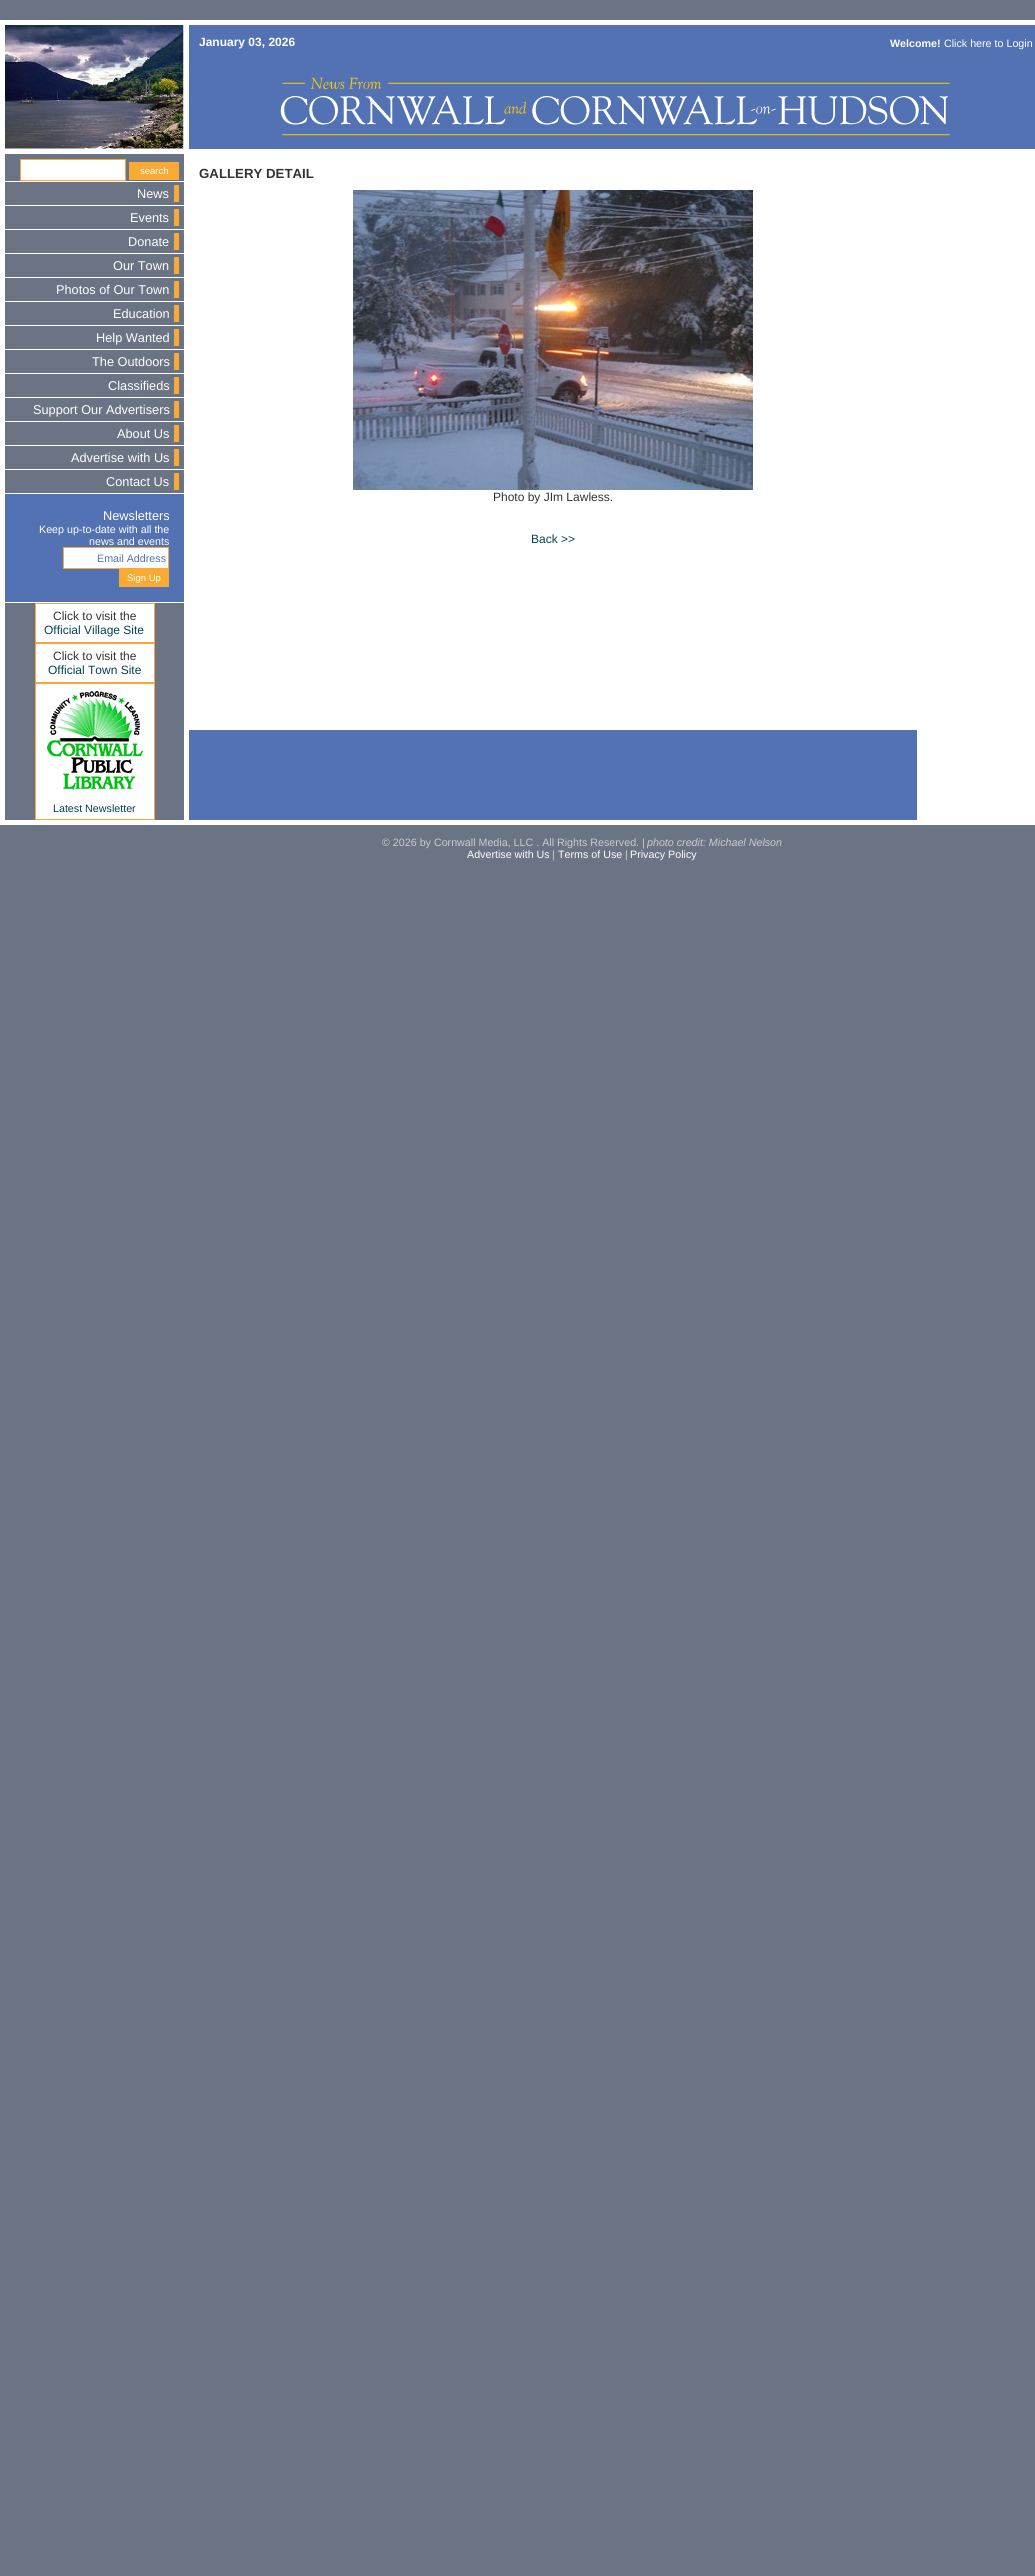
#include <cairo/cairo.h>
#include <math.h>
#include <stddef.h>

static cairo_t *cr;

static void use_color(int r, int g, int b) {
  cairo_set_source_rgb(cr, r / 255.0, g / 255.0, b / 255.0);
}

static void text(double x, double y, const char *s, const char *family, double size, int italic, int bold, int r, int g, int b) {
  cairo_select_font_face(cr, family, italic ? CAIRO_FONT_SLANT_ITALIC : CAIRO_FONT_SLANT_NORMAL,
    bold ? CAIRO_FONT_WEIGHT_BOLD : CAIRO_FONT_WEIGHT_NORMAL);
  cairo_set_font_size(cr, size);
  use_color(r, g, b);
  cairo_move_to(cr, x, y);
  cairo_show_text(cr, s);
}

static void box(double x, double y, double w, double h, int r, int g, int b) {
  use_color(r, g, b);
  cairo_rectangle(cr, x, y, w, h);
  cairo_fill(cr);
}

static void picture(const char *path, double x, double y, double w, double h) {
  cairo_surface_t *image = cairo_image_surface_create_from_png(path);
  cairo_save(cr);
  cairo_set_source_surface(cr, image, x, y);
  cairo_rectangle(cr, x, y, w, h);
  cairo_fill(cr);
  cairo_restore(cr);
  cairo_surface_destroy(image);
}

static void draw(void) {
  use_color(106, 116, 132);
  cairo_paint(cr);
  box(0, 20, 1035, 805, 255, 255, 255);
  picture("img_01.png", 5, 25, 179, 124);
  box(189, 25, 846, 124, 82, 114, 180);
  picture("img_02.png", 280, 77, 670, 59);
  box(5, 154, 179, 666, 106, 116, 132);
  use_color(255, 255, 255);
  cairo_rectangle(cr, 20.5, 159.5, 105, 21);
  cairo_fill_preserve(cr);
  use_color(248, 170, 51);
  cairo_set_line_width(cr, 1);
  cairo_stroke(cr);
  box(129, 162, 50, 18, 248, 170, 51);
  box(5, 181, 179, 1, 255, 255, 255);
  box(174, 185, 5, 17, 248, 170, 51);
  box(5, 205, 179, 1, 255, 255, 255);
  box(174, 209, 5, 17, 248, 170, 51);
  box(5, 229, 179, 1, 255, 255, 255);
  box(174, 233, 5, 17, 248, 170, 51);
  box(5, 253, 179, 1, 255, 255, 255);
  box(174, 257, 5, 17, 248, 170, 51);
  box(5, 277, 179, 1, 255, 255, 255);
  box(174, 281, 5, 17, 248, 170, 51);
  box(5, 301, 179, 1, 255, 255, 255);
  box(174, 305, 5, 17, 248, 170, 51);
  box(5, 325, 179, 1, 255, 255, 255);
  box(174, 329, 5, 17, 248, 170, 51);
  box(5, 349, 179, 1, 255, 255, 255);
  box(174, 353, 5, 17, 248, 170, 51);
  box(5, 373, 179, 1, 255, 255, 255);
  box(174, 377, 5, 17, 248, 170, 51);
  box(5, 397, 179, 1, 255, 255, 255);
  box(174, 401, 5, 17, 248, 170, 51);
  box(5, 421, 179, 1, 255, 255, 255);
  box(174, 425, 5, 17, 248, 170, 51);
  box(5, 445, 179, 1, 255, 255, 255);
  box(174, 449, 5, 17, 248, 170, 51);
  box(5, 469, 179, 1, 255, 255, 255);
  box(174, 473, 5, 17, 248, 170, 51);
  box(5, 493, 179, 1, 255, 255, 255);
  box(5, 494, 179, 108, 82, 114, 180);
  use_color(255, 255, 255);
  cairo_rectangle(cr, 63.5, 547.5, 105, 21);
  cairo_fill_preserve(cr);
  use_color(248, 170, 51);
  cairo_stroke(cr);
  box(119, 569, 50, 18, 248, 170, 51);
  box(5, 602, 179, 1, 255, 255, 255);
  box(35, 603, 120, 217, 254, 166, 53);
  box(36, 604, 118, 38, 255, 255, 255);
  box(36, 644, 118, 38, 255, 255, 255);
  box(36, 684, 118, 135, 255, 255, 255);
  picture("img_03.png", 47, 691, 96, 99);
  picture("img_04.png", 353, 190, 400, 300);
  box(189, 730, 728, 90, 82, 114, 180);
  text(199, 46, "January 03, 2026", "Liberation Sans", 12, 0, 1, 255, 255, 255);
  text(890, 47, "Welcome!", "Liberation Sans", 10.7, 0, 1, 255, 255, 255);
  text(944, 47, "Click here to Login", "Liberation Sans", 10.7, 0, 0, 255, 255, 255);
  text(140, 174, "search", "Liberation Sans", 9.5, 0, 0, 255, 255, 255);
  text(137, 198, "News", "Liberation Sans", 12.75, 0, 0, 255, 255, 255);
  text(130, 222, "Events", "Liberation Sans", 12.75, 0, 0, 255, 255, 255);
  text(128, 246, "Donate", "Liberation Sans", 12.75, 0, 0, 255, 255, 255);
  text(113, 270, "Our Town", "Liberation Sans", 12.75, 0, 0, 255, 255, 255);
  text(56, 294, "Photos of Our Town", "Liberation Sans", 12.75, 0, 0, 255, 255, 255);
  text(113, 318, "Education", "Liberation Sans", 12.75, 0, 0, 255, 255, 255);
  text(96, 342, "Help Wanted", "Liberation Sans", 12.75, 0, 0, 255, 255, 255);
  text(92, 366, "The Outdoors", "Liberation Sans", 12.75, 0, 0, 255, 255, 255);
  text(108, 390, "Classifieds", "Liberation Sans", 12.75, 0, 0, 255, 255, 255);
  text(33, 414, "Support Our Advertisers", "Liberation Sans", 12.75, 0, 0, 255, 255, 255);
  text(117, 438, "About Us", "Liberation Sans", 12.75, 0, 0, 255, 255, 255);
  text(71, 462, "Advertise with Us", "Liberation Sans", 12.75, 0, 0, 255, 255, 255);
  text(106, 486, "Contact Us", "Liberation Sans", 12.75, 0, 0, 255, 255, 255);
  text(103, 520, "Newsletters", "Liberation Sans", 12.75, 0, 0, 255, 255, 255);
  text(39, 533, "Keep up-to-date with all the", "Liberation Sans", 10.7, 0, 0, 255, 255, 255);
  text(89, 545, "news and events", "Liberation Sans", 10.7, 0, 0, 255, 255, 255);
  text(97, 562, "Email Address", "Liberation Sans", 10.7, 0, 0, 82, 114, 180);
  text(127, 581, "Sign Up", "Liberation Sans", 9.5, 0, 0, 255, 255, 255);
  text(53, 620, "Click to visit the", "Liberation Sans", 12, 0, 0, 51, 51, 51);
  text(44, 634, "Official Village Site", "Liberation Sans", 12, 0, 0, 4, 66, 84);
  text(53, 660, "Click to visit the", "Liberation Sans", 12, 0, 0, 51, 51, 51);
  text(48, 674, "Official Town Site", "Liberation Sans", 12, 0, 0, 4, 66, 84);
  text(53, 812, "Latest Newsletter", "Liberation Sans", 10.7, 0, 0, 4, 66, 84);
  text(199, 178, "GALLERY DETAIL", "Liberation Sans", 13.25, 0, 1, 51, 51, 51);
  text(493, 501, "Photo by JIm Lawless.", "Liberation Sans", 12, 0, 0, 51, 51, 51);
  text(531, 543, "Back >>", "Liberation Sans", 12, 0, 0, 4, 66, 84);
  text(382, 846, "© 2026 by Cornwall Media, LLC . All Rights Reserved. |", "Liberation Sans", 10.7, 0, 0, 204, 204, 204);
  text(647, 846, "photo credit: Michael Nelson", "Liberation Sans", 10.7, 1, 0, 204, 204, 204);
  text(467, 858, "Advertise with Us", "Liberation Sans", 10.7, 0, 0, 255, 255, 255);
  text(552, 858, "|", "Liberation Sans", 10.7, 0, 0, 204, 204, 204);
  text(558, 858, "Terms of Use", "Liberation Sans", 10.7, 0, 0, 255, 255, 255);
  text(625, 858, "|", "Liberation Sans", 10.7, 0, 0, 204, 204, 204);
  text(630, 858, "Privacy Policy", "Liberation Sans", 10.7, 0, 0, 255, 255, 255);
}

int main(void) {
  cairo_surface_t *surface = cairo_image_surface_create(CAIRO_FORMAT_RGB24, 1035, 2576);
  cr = cairo_create(surface);
  cairo_font_options_t *options = cairo_font_options_create();
  cairo_font_options_set_hint_metrics(options, CAIRO_HINT_METRICS_OFF);
  cairo_font_options_set_hint_style(options, CAIRO_HINT_STYLE_NONE);
  cairo_set_font_options(cr, options);
  cairo_set_miter_limit(cr, 4);
  draw();
  cairo_surface_write_to_png(surface, "out.png");
  cairo_font_options_destroy(options);
  cairo_destroy(cr);
  cairo_surface_destroy(surface);
  return 0;
}
